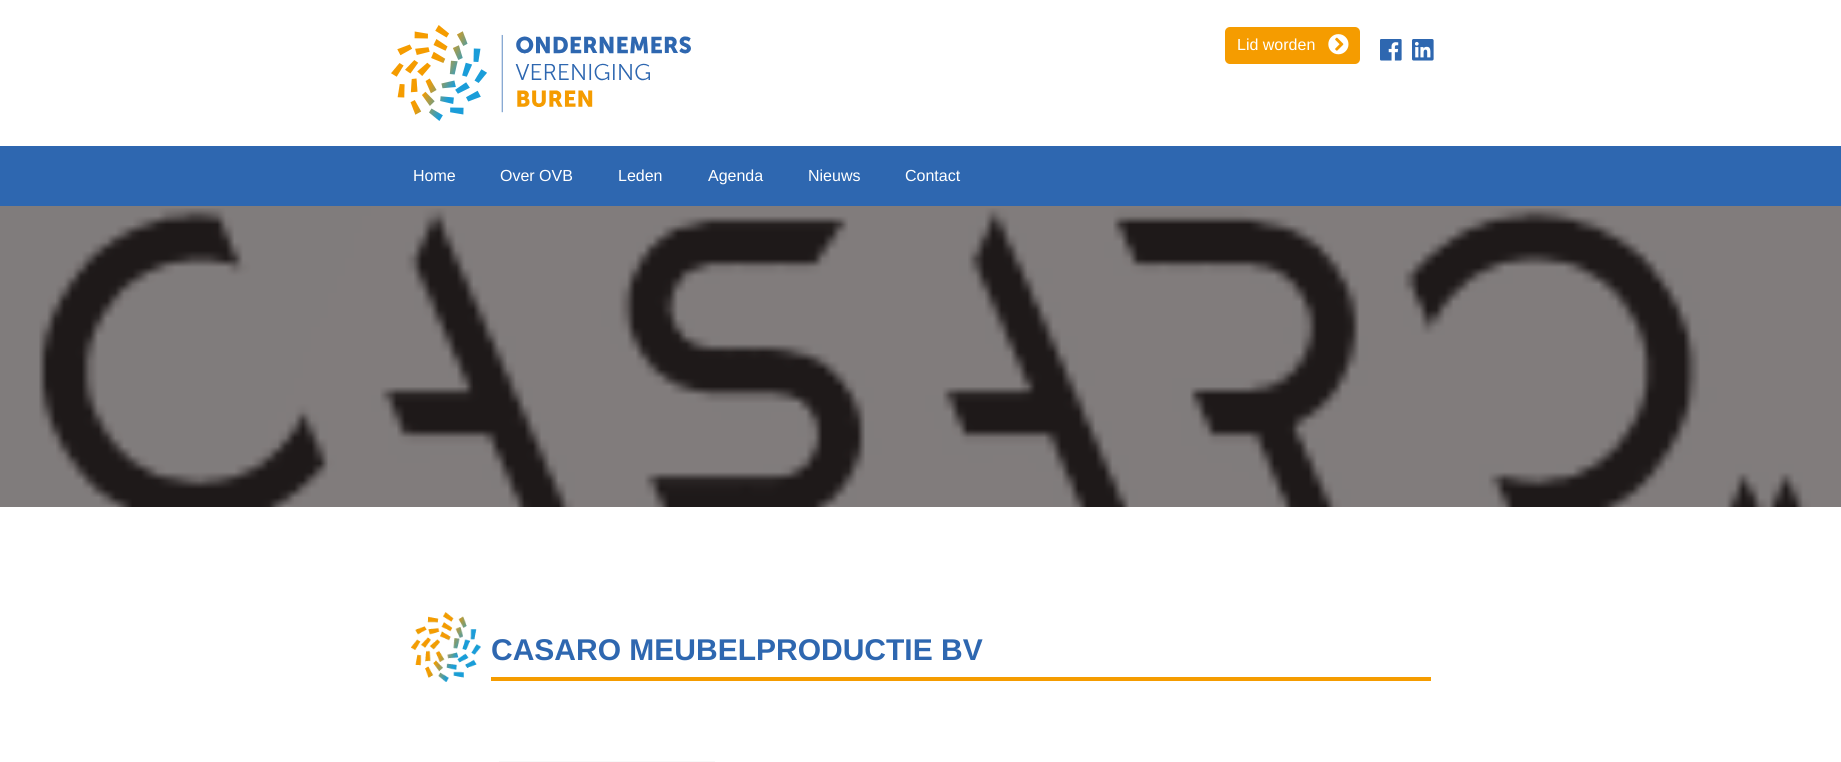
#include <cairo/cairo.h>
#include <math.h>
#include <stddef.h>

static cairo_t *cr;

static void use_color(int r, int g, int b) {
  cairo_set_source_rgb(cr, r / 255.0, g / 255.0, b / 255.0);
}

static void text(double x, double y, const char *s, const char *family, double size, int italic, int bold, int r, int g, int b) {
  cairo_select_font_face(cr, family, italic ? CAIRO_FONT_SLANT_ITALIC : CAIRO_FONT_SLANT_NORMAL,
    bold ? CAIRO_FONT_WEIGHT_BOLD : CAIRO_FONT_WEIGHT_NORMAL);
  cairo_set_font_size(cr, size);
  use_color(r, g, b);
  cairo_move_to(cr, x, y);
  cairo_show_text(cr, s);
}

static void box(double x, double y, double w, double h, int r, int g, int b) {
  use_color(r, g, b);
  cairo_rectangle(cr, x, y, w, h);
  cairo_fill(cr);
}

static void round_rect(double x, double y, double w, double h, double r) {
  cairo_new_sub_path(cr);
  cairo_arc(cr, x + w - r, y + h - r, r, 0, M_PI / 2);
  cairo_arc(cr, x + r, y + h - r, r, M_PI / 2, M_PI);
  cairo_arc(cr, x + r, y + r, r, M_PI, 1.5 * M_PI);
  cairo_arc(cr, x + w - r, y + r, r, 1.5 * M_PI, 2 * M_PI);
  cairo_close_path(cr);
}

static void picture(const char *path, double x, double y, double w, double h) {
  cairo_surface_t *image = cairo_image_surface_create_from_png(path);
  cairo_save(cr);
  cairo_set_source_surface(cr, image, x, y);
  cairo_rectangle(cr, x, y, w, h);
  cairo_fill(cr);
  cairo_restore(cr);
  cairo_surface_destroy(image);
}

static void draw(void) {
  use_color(255, 255, 255);
  cairo_paint(cr);
  picture("img_01.png", 391, 25, 300, 96);
  use_color(245, 156, 0);
  round_rect(1225, 27, 135, 37, 5);
  cairo_fill(cr);
  picture("img_02.png", 1328, 34, 21, 21);
  picture("img_03.png", 1380, 39, 22, 22);
  picture("img_04.png", 1412, 39, 22, 22);
  box(0, 146, 1841, 60, 46, 103, 176);
  picture("img_05.png", 0, 206, 1841, 301);
  picture("img_06.png", 411, 612, 70, 70);
  box(491, 677, 940, 4, 245, 156, 0);
  box(499, 761, 216, 1, 248, 248, 248);
  text(1237, 50, "Lid worden", "Liberation Sans", 16, 0, 0, 255, 255, 255);
  text(413, 181, "Home", "Liberation Sans", 16, 0, 0, 255, 255, 255);
  text(500, 181, "Over OVB", "Liberation Sans", 16, 0, 0, 255, 255, 255);
  text(618, 181, "Leden", "Liberation Sans", 16, 0, 0, 255, 255, 255);
  text(708, 181, "Agenda", "Liberation Sans", 16, 0, 0, 255, 255, 255);
  text(808, 181, "Nieuws", "Liberation Sans", 16, 0, 0, 255, 255, 255);
  text(905, 181, "Contact", "Liberation Sans", 16, 0, 0, 255, 255, 255);
  text(491, 660, "CASARO MEUBELPRODUCTIE BV", "Liberation Sans", 30, 0, 1, 46, 103, 176);
}

int main(void) {
  cairo_surface_t *surface = cairo_image_surface_create(CAIRO_FORMAT_RGB24, 1841, 762);
  cr = cairo_create(surface);
  cairo_font_options_t *options = cairo_font_options_create();
  cairo_font_options_set_hint_metrics(options, CAIRO_HINT_METRICS_OFF);
  cairo_font_options_set_hint_style(options, CAIRO_HINT_STYLE_NONE);
  cairo_set_font_options(cr, options);
  cairo_set_miter_limit(cr, 4);
  draw();
  cairo_surface_write_to_png(surface, "out.png");
  cairo_font_options_destroy(options);
  cairo_destroy(cr);
  cairo_surface_destroy(surface);
  return 0;
}
